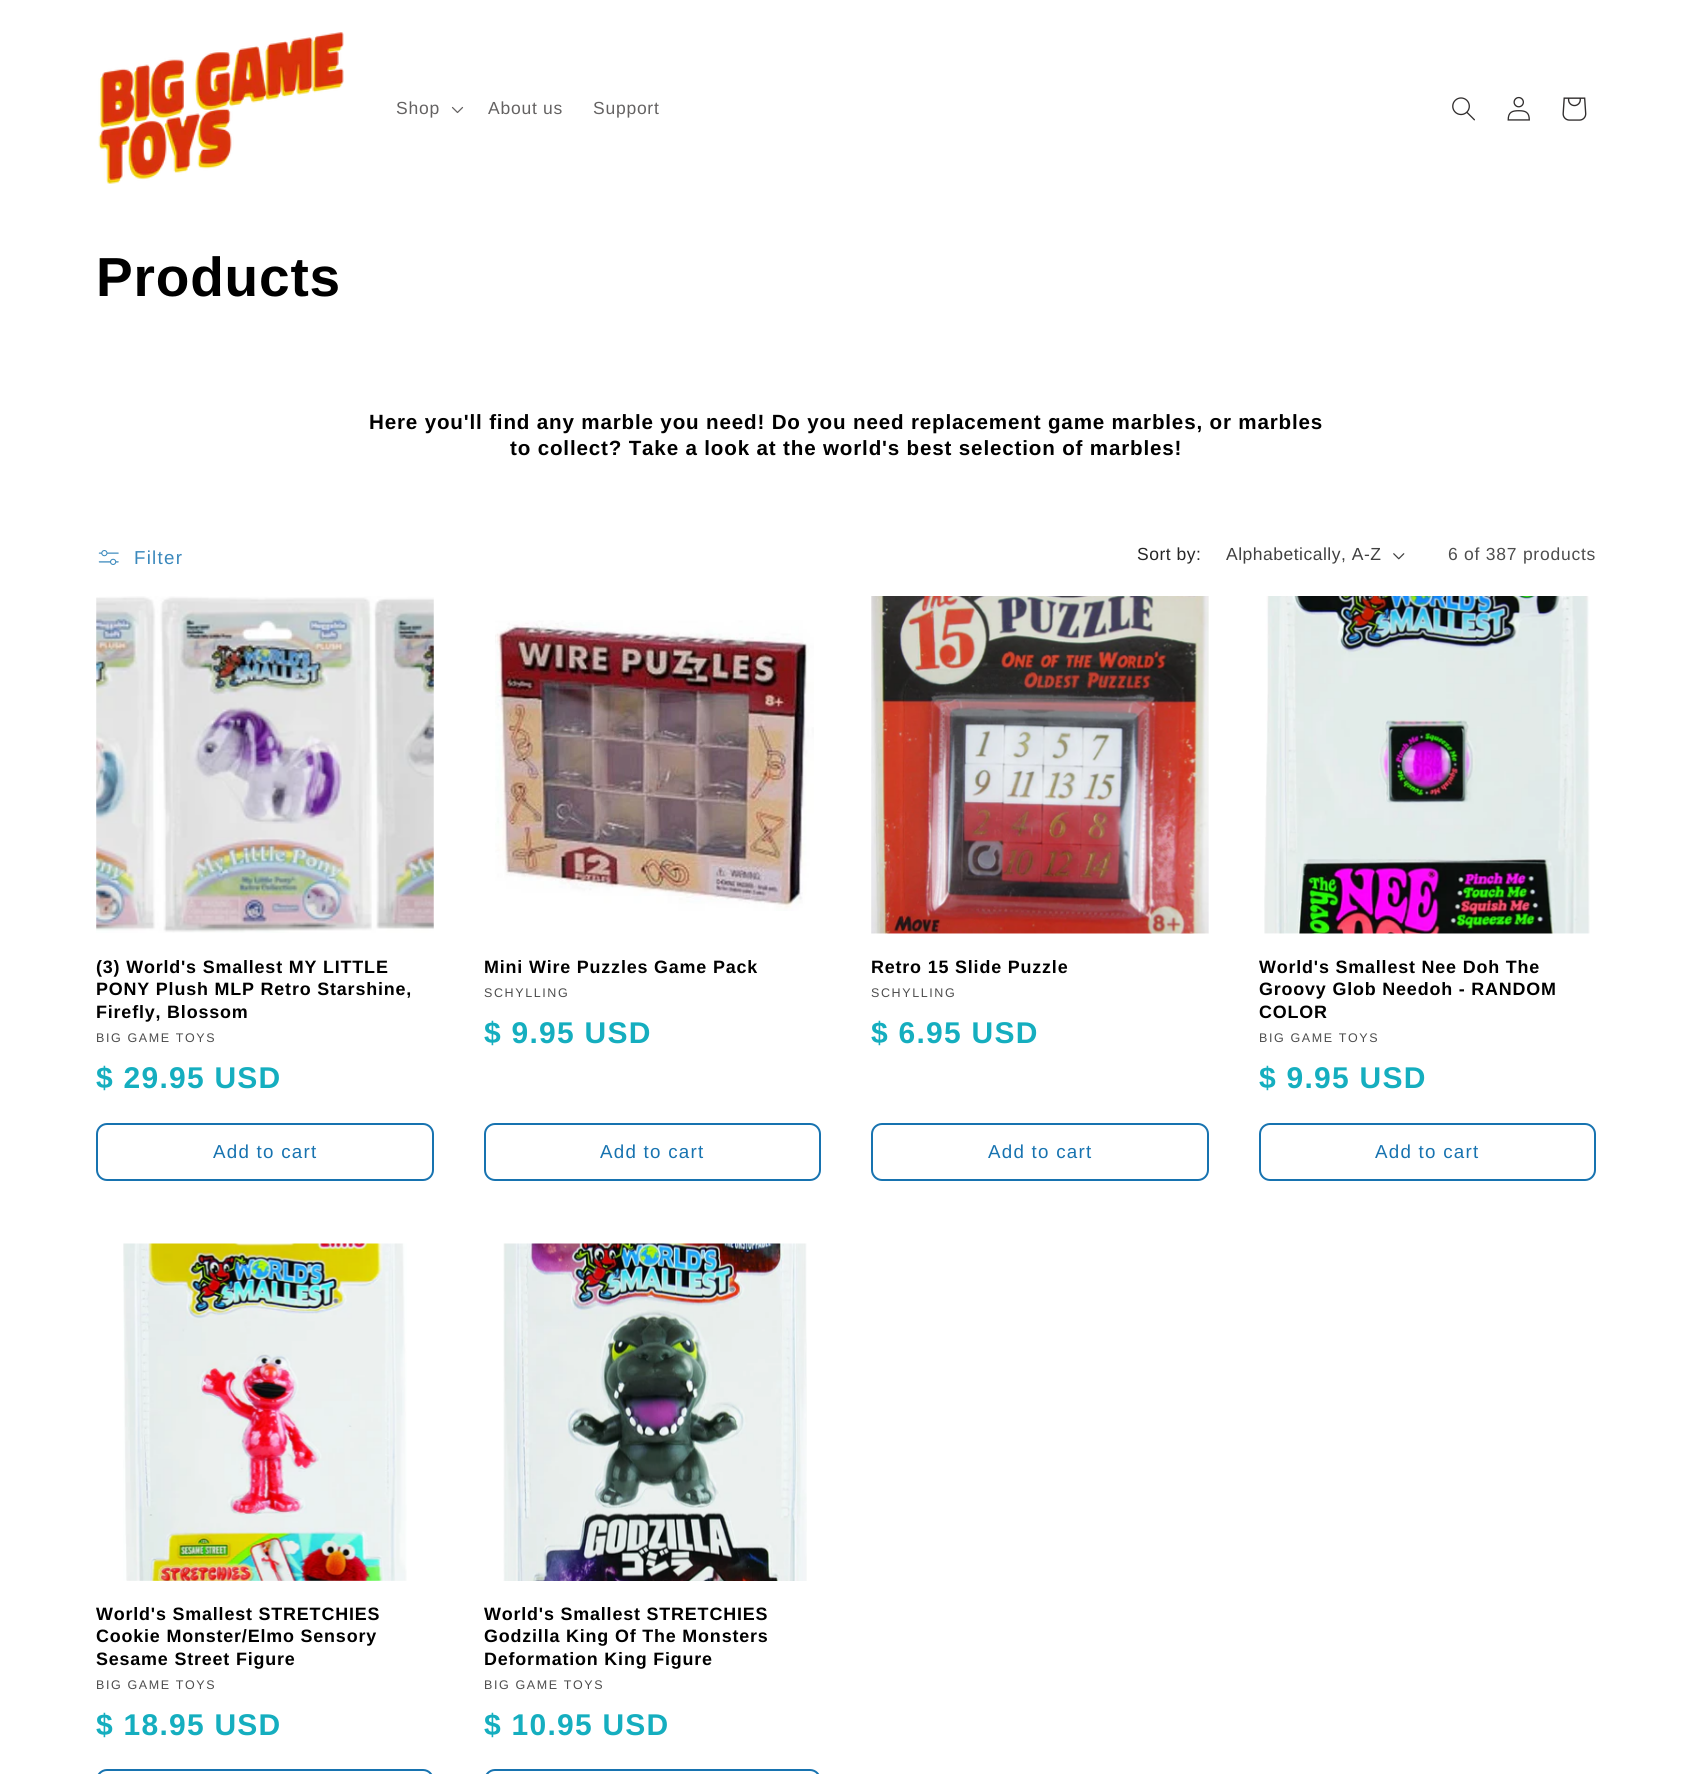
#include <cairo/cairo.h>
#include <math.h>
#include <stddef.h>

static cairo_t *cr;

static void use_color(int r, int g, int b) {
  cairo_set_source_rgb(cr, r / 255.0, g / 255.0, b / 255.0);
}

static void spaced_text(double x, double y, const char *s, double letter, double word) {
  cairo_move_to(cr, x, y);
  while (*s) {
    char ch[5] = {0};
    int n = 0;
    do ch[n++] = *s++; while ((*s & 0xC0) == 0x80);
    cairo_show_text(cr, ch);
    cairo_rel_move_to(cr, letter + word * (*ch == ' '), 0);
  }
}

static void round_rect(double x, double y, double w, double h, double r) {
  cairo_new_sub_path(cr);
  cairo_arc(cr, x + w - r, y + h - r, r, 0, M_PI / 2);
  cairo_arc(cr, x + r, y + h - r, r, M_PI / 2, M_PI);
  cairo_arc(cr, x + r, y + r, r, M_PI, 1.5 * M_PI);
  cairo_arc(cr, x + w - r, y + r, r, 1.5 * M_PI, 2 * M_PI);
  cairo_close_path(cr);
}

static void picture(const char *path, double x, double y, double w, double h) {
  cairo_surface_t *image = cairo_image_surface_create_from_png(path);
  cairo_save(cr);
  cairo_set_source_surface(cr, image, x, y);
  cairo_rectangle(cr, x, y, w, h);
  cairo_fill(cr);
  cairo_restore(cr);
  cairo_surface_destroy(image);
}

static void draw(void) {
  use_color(255, 255, 255);
  cairo_paint(cr);
  picture("img_01.png", 98, 32, 246, 152);
  picture("img_02.png", 451, 106, 13, 8);
  picture("img_03.png", 1452, 97, 23, 24);
  picture("img_04.png", 1507, 96, 23, 25);
  picture("img_05.png", 1562, 97, 25, 24);
  picture("img_06.png", 98, 550, 21, 15);
  picture("img_07.png", 1393, 553, 12, 7);
  picture("img_08.png", 96, 596, 338, 337);
  round_rect(97, 1124, 336, 56, 10);
  use_color(23, 115, 176);
  cairo_stroke(cr);
  picture("img_09.png", 495, 620, 319, 291);
  round_rect(485, 1124, 335, 56, 10);
  cairo_stroke(cr);
  picture("img_10.png", 871, 596, 338, 338);
  round_rect(872, 1124, 336, 56, 10);
  cairo_stroke(cr);
  picture("img_11.png", 1264, 596, 326, 338);
  round_rect(1260, 1124, 335, 56, 10);
  cairo_stroke(cr);
  picture("img_12.png", 123, 1243, 284, 338);
  round_rect(97, 1770, 336, 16, 10);
  cairo_stroke(cr);
  picture("img_13.png", 503, 1243, 304, 338);
  round_rect(485, 1770, 335, 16, 10);
  cairo_stroke(cr);
  cairo_select_font_face(cr, "Liberation Sans", CAIRO_FONT_SLANT_NORMAL, CAIRO_FONT_WEIGHT_NORMAL);
  cairo_set_font_size(cr, 17.5);
  use_color(100, 98, 98);
  spaced_text(396, 114, "Shop", 0.75, 0);
  spaced_text(488, 114, "About us", 0.75, 0);
  spaced_text(593, 114, "Support", 0.75, 0);
  cairo_select_font_face(cr, "Liberation Sans", CAIRO_FONT_SLANT_NORMAL, CAIRO_FONT_WEIGHT_BOLD);
  cairo_set_font_size(cr, 55);
  use_color(0, 0, 0);
  spaced_text(96, 296, "Products", 0.83, 0);
  cairo_set_font_size(cr, 20.6);
  spaced_text(369, 429, "Here you'll find any marble you need! Do you need replacement game marbles, or marbles", 0.83, 0);
  spaced_text(510, 455, "to collect? Take a look at the world's best selection of marbles!", 0.83, 0);
  cairo_select_font_face(cr, "Liberation Sans", CAIRO_FONT_SLANT_NORMAL, CAIRO_FONT_WEIGHT_NORMAL);
  cairo_set_font_size(cr, 18.75);
  use_color(58, 136, 188);
  spaced_text(134, 564, "Filter", 1.25, 0);
  cairo_set_font_size(cr, 17.5);
  use_color(38, 38, 38);
  spaced_text(1137, 560, "Sort by:", 0.5, 0);
  use_color(64, 64, 64);
  spaced_text(1226, 560, "Alphabetically, A-Z", 0.5, 0);
  use_color(77, 77, 77);
  spaced_text(1448, 560, "6 of 387 products", 0.75, 0);
  cairo_select_font_face(cr, "Liberation Sans", CAIRO_FONT_SLANT_NORMAL, CAIRO_FONT_WEIGHT_BOLD);
  cairo_set_font_size(cr, 17.9);
  use_color(0, 0, 0);
  spaced_text(96, 973, "(3) World's Smallest MY LITTLE", 0.83, 0);
  spaced_text(96, 995, "PONY Plush MLP Retro Starshine,", 0.83, 0);
  spaced_text(96, 1018, "Firefly, Blossom", 0.83, 0);
  cairo_select_font_face(cr, "Liberation Sans", CAIRO_FONT_SLANT_NORMAL, CAIRO_FONT_WEIGHT_NORMAL);
  cairo_set_font_size(cr, 12.5);
  use_color(77, 77, 77);
  spaced_text(96, 1042, "BIG GAME TOYS", 1.6, 0);
  cairo_select_font_face(cr, "Liberation Sans", CAIRO_FONT_SLANT_NORMAL, CAIRO_FONT_WEIGHT_BOLD);
  cairo_set_font_size(cr, 30);
  use_color(21, 174, 191);
  spaced_text(96, 1088, "$ 29.95 USD", 1.25, 0);
  cairo_select_font_face(cr, "Liberation Sans", CAIRO_FONT_SLANT_NORMAL, CAIRO_FONT_WEIGHT_NORMAL);
  cairo_set_font_size(cr, 18.75);
  use_color(23, 115, 176);
  spaced_text(213, 1158, "Add to cart", 1.25, 0);
  cairo_select_font_face(cr, "Liberation Sans", CAIRO_FONT_SLANT_NORMAL, CAIRO_FONT_WEIGHT_BOLD);
  cairo_set_font_size(cr, 17.9);
  use_color(0, 0, 0);
  spaced_text(484, 973, "Mini Wire Puzzles Game Pack", 0.83, 0);
  cairo_select_font_face(cr, "Liberation Sans", CAIRO_FONT_SLANT_NORMAL, CAIRO_FONT_WEIGHT_NORMAL);
  cairo_set_font_size(cr, 12.5);
  use_color(77, 77, 77);
  spaced_text(484, 997, "SCHYLLING", 1.6, 0);
  cairo_select_font_face(cr, "Liberation Sans", CAIRO_FONT_SLANT_NORMAL, CAIRO_FONT_WEIGHT_BOLD);
  cairo_set_font_size(cr, 30);
  use_color(21, 174, 191);
  spaced_text(484, 1043, "$ 9.95 USD", 1.25, 0);
  cairo_select_font_face(cr, "Liberation Sans", CAIRO_FONT_SLANT_NORMAL, CAIRO_FONT_WEIGHT_NORMAL);
  cairo_set_font_size(cr, 18.75);
  use_color(23, 115, 176);
  spaced_text(600, 1158, "Add to cart", 1.25, 0);
  cairo_select_font_face(cr, "Liberation Sans", CAIRO_FONT_SLANT_NORMAL, CAIRO_FONT_WEIGHT_BOLD);
  cairo_set_font_size(cr, 17.9);
  use_color(0, 0, 0);
  spaced_text(871, 973, "Retro 15 Slide Puzzle", 0.83, 0);
  cairo_select_font_face(cr, "Liberation Sans", CAIRO_FONT_SLANT_NORMAL, CAIRO_FONT_WEIGHT_NORMAL);
  cairo_set_font_size(cr, 12.5);
  use_color(77, 77, 77);
  spaced_text(871, 997, "SCHYLLING", 1.6, 0);
  cairo_select_font_face(cr, "Liberation Sans", CAIRO_FONT_SLANT_NORMAL, CAIRO_FONT_WEIGHT_BOLD);
  cairo_set_font_size(cr, 30);
  use_color(21, 174, 191);
  spaced_text(871, 1043, "$ 6.95 USD", 1.25, 0);
  cairo_select_font_face(cr, "Liberation Sans", CAIRO_FONT_SLANT_NORMAL, CAIRO_FONT_WEIGHT_NORMAL);
  cairo_set_font_size(cr, 18.75);
  use_color(23, 115, 176);
  spaced_text(988, 1158, "Add to cart", 1.25, 0);
  cairo_select_font_face(cr, "Liberation Sans", CAIRO_FONT_SLANT_NORMAL, CAIRO_FONT_WEIGHT_BOLD);
  cairo_set_font_size(cr, 17.9);
  use_color(0, 0, 0);
  spaced_text(1259, 973, "World's Smallest Nee Doh The", 0.83, 0);
  spaced_text(1259, 995, "Groovy Glob Needoh - RANDOM", 0.83, 0);
  spaced_text(1259, 1018, "COLOR", 0.83, 0);
  cairo_select_font_face(cr, "Liberation Sans", CAIRO_FONT_SLANT_NORMAL, CAIRO_FONT_WEIGHT_NORMAL);
  cairo_set_font_size(cr, 12.5);
  use_color(77, 77, 77);
  spaced_text(1259, 1042, "BIG GAME TOYS", 1.6, 0);
  cairo_select_font_face(cr, "Liberation Sans", CAIRO_FONT_SLANT_NORMAL, CAIRO_FONT_WEIGHT_BOLD);
  cairo_set_font_size(cr, 30);
  use_color(21, 174, 191);
  spaced_text(1259, 1088, "$ 9.95 USD", 1.25, 0);
  cairo_select_font_face(cr, "Liberation Sans", CAIRO_FONT_SLANT_NORMAL, CAIRO_FONT_WEIGHT_NORMAL);
  cairo_set_font_size(cr, 18.75);
  use_color(23, 115, 176);
  spaced_text(1375, 1158, "Add to cart", 1.25, 0);
  cairo_select_font_face(cr, "Liberation Sans", CAIRO_FONT_SLANT_NORMAL, CAIRO_FONT_WEIGHT_BOLD);
  cairo_set_font_size(cr, 17.9);
  use_color(0, 0, 0);
  spaced_text(96, 1620, "World's Smallest STRETCHIES", 0.83, 0);
  spaced_text(96, 1642, "Cookie Monster/Elmo Sensory", 0.83, 0);
  spaced_text(96, 1665, "Sesame Street Figure", 0.83, 0);
  cairo_select_font_face(cr, "Liberation Sans", CAIRO_FONT_SLANT_NORMAL, CAIRO_FONT_WEIGHT_NORMAL);
  cairo_set_font_size(cr, 12.5);
  use_color(77, 77, 77);
  spaced_text(96, 1689, "BIG GAME TOYS", 1.6, 0);
  cairo_select_font_face(cr, "Liberation Sans", CAIRO_FONT_SLANT_NORMAL, CAIRO_FONT_WEIGHT_BOLD);
  cairo_set_font_size(cr, 30);
  use_color(21, 174, 191);
  spaced_text(96, 1735, "$ 18.95 USD", 1.25, 0);
  cairo_set_font_size(cr, 17.9);
  use_color(0, 0, 0);
  spaced_text(484, 1620, "World's Smallest STRETCHIES", 0.83, 0);
  spaced_text(484, 1642, "Godzilla King Of The Monsters", 0.83, 0);
  spaced_text(484, 1665, "Deformation King Figure", 0.83, 0);
  cairo_select_font_face(cr, "Liberation Sans", CAIRO_FONT_SLANT_NORMAL, CAIRO_FONT_WEIGHT_NORMAL);
  cairo_set_font_size(cr, 12.5);
  use_color(77, 77, 77);
  spaced_text(484, 1689, "BIG GAME TOYS", 1.6, 0);
  cairo_select_font_face(cr, "Liberation Sans", CAIRO_FONT_SLANT_NORMAL, CAIRO_FONT_WEIGHT_BOLD);
  cairo_set_font_size(cr, 30);
  use_color(21, 174, 191);
  spaced_text(484, 1735, "$ 10.95 USD", 1.25, 0);
}

int main(void) {
  cairo_surface_t *surface = cairo_image_surface_create(CAIRO_FORMAT_RGB24, 1692, 1774);
  cr = cairo_create(surface);
  cairo_font_options_t *options = cairo_font_options_create();
  cairo_font_options_set_hint_metrics(options, CAIRO_HINT_METRICS_OFF);
  cairo_font_options_set_hint_style(options, CAIRO_HINT_STYLE_NONE);
  cairo_set_font_options(cr, options);
  cairo_set_miter_limit(cr, 4);
  draw();
  cairo_surface_write_to_png(surface, "out.png");
  cairo_font_options_destroy(options);
  cairo_destroy(cr);
  cairo_surface_destroy(surface);
  return 0;
}
